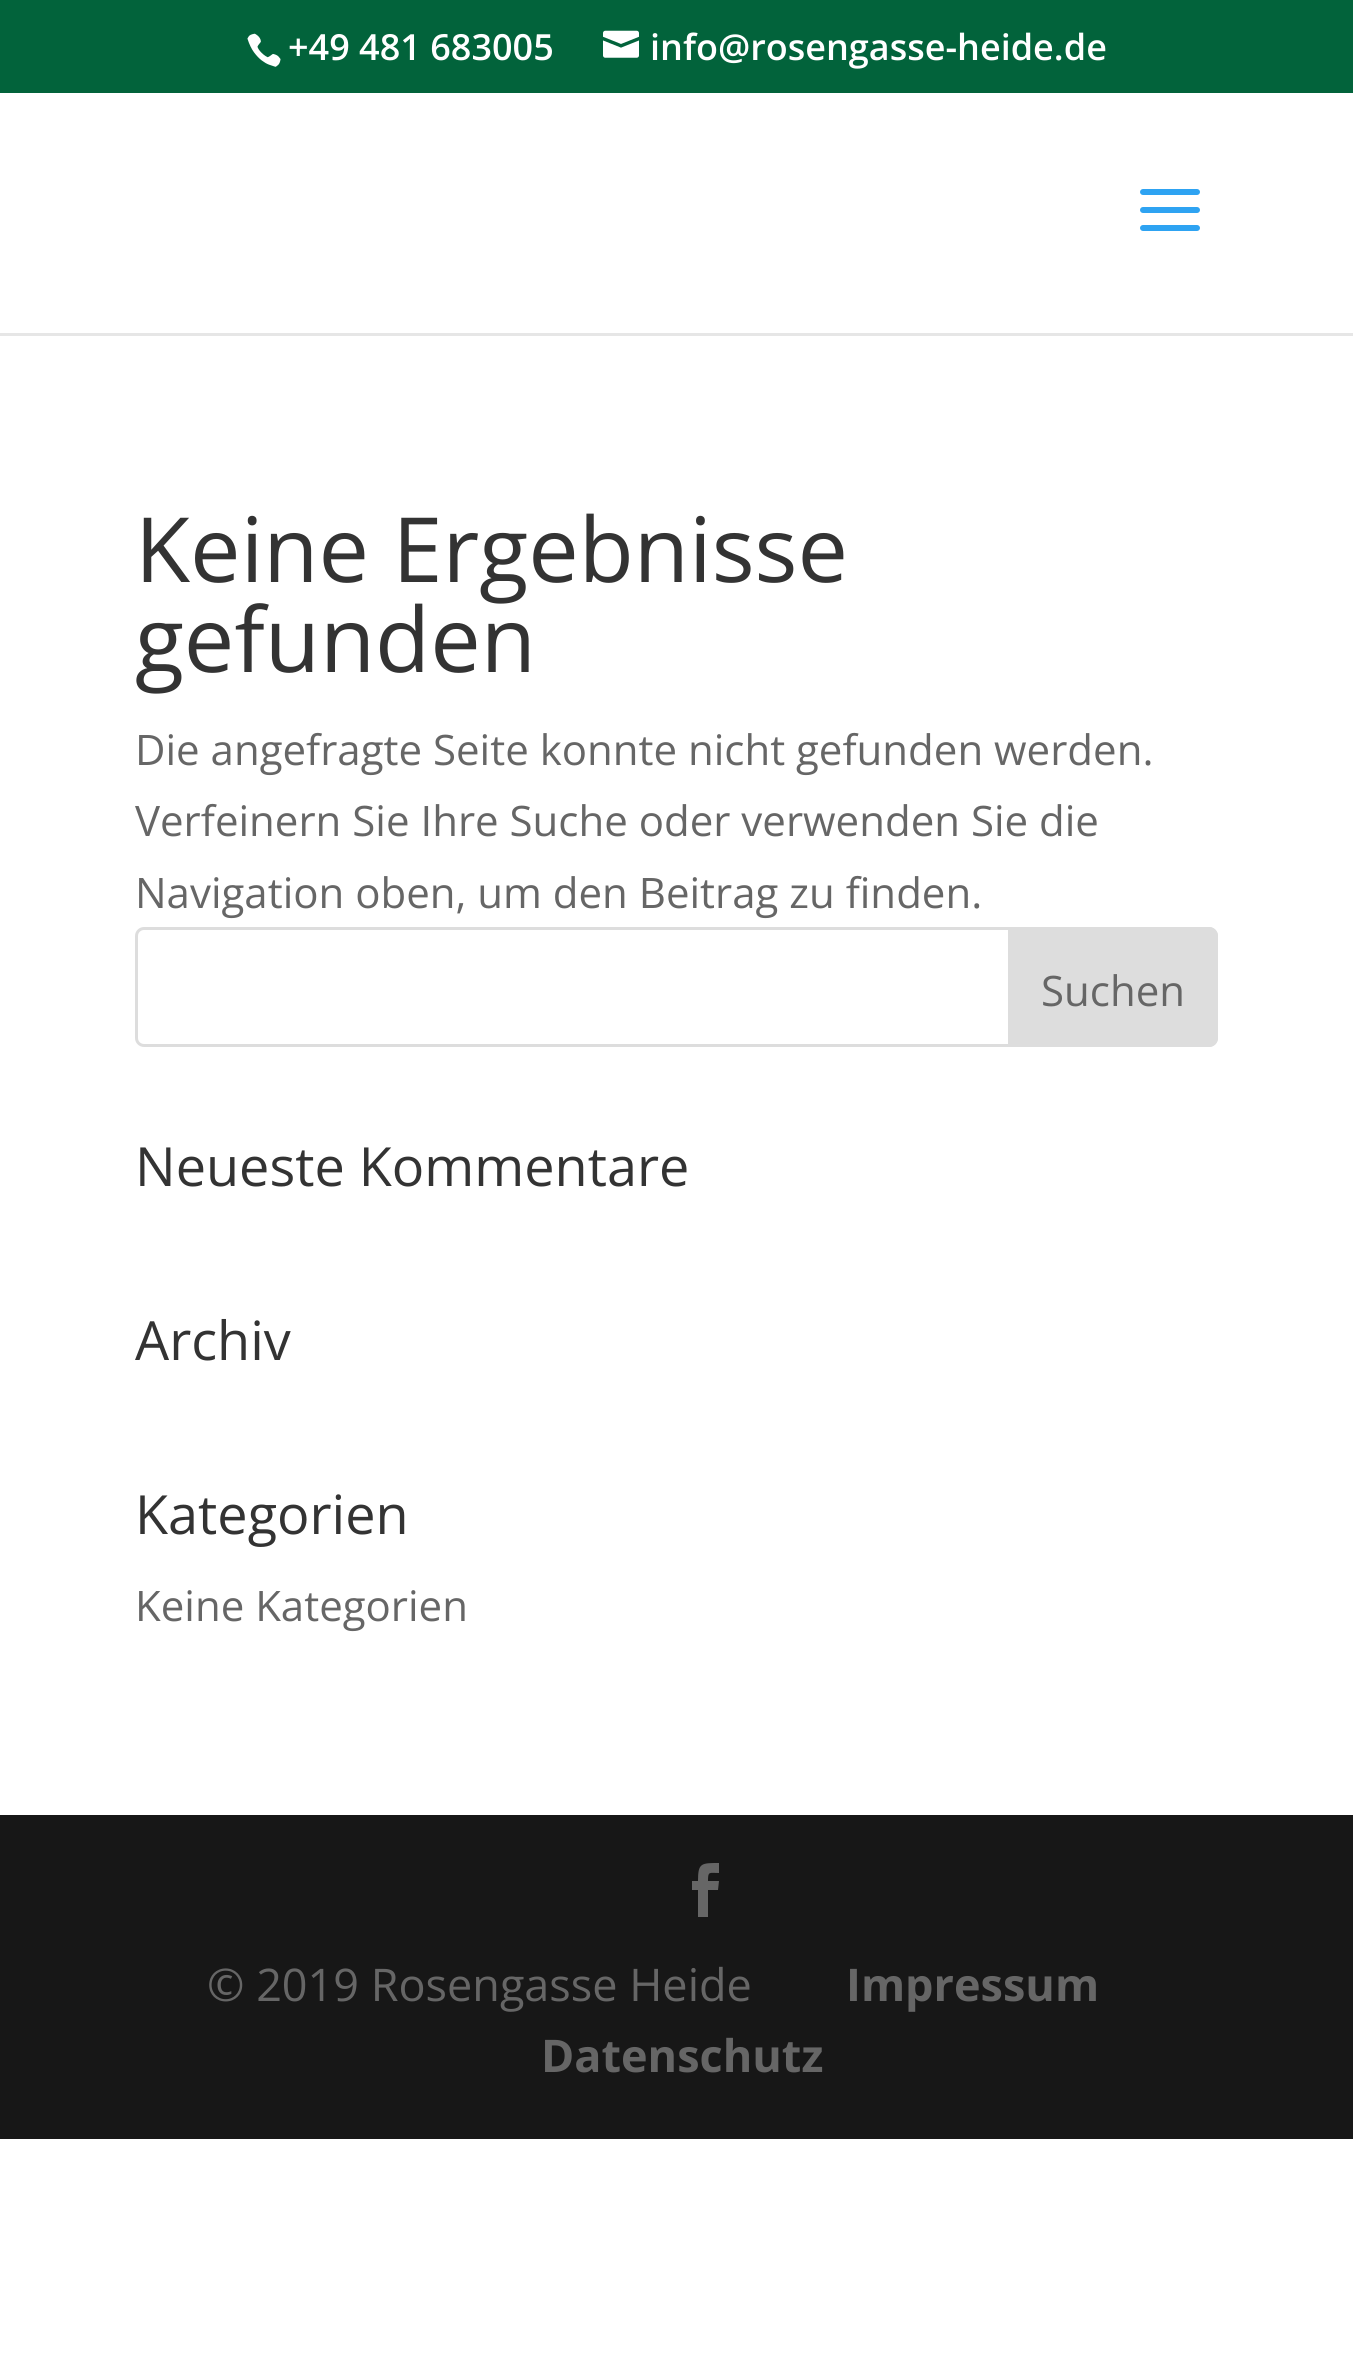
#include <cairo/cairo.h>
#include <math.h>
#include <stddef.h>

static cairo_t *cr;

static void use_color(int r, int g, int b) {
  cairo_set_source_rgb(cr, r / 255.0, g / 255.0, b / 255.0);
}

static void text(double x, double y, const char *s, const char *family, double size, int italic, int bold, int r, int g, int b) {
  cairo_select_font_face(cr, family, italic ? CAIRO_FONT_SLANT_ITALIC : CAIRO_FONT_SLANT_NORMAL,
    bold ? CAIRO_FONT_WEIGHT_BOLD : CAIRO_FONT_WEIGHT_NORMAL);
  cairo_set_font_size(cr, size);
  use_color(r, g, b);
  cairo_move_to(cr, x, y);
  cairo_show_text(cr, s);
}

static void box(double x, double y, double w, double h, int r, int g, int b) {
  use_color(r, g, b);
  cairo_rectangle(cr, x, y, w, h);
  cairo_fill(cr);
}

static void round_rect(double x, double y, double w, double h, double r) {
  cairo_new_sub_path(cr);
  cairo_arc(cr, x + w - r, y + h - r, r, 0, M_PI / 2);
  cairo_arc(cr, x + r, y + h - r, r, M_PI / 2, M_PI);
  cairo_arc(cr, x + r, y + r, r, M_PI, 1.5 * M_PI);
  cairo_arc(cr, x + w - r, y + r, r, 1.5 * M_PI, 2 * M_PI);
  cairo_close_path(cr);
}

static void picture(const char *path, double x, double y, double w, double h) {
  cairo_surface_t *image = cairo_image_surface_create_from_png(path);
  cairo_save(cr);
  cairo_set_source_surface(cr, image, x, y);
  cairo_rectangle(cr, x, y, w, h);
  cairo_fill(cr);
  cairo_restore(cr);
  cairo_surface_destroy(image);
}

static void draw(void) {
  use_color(255, 255, 255);
  cairo_paint(cr);
  box(0, 0, 1353, 93, 2, 99, 59);
  picture("img_01.png", 247, 33, 34, 34);
  picture("img_02.png", 603, 30, 36, 28);
  box(0, 333, 1353, 3, 230, 230, 230);
  picture("img_03.png", 1140, 189, 60, 42);
  round_rect(136.5, 928.5, 1080, 117, 7.5);
  use_color(221, 221, 221);
  cairo_set_line_width(cr, 3);
  cairo_stroke(cr);
  cairo_new_path(cr);
  cairo_move_to(cr, 1009.5, 928.5);
  cairo_line_to(cr, 1209, 928.5);
  cairo_curve_to(cr, 1213, 928.5, 1216.5, 932, 1216.5, 936);
  cairo_line_to(cr, 1216.5, 1038);
  cairo_curve_to(cr, 1216.5, 1042, 1213, 1045.5, 1209, 1045.5);
  cairo_line_to(cr, 1009.5, 1045.5);
  cairo_close_path(cr);
  cairo_fill_preserve(cr);
  cairo_stroke(cr);
  box(0, 1815, 1353, 324, 23, 23, 23);
  use_color(102, 102, 102);
  cairo_new_path(cr);
  cairo_move_to(cr, 698, 1917);
  cairo_line_to(cr, 708, 1917);
  cairo_line_to(cr, 708, 1890);
  cairo_line_to(cr, 718, 1890);
  cairo_line_to(cr, 719, 1881);
  cairo_line_to(cr, 708, 1881);
  cairo_curve_to(cr, 708, 1871, 709, 1873, 719, 1873);
  cairo_line_to(cr, 719, 1863);
  cairo_curve_to(cr, 701, 1863, 698, 1863, 698, 1881);
  cairo_line_to(cr, 692, 1881);
  cairo_line_to(cr, 692, 1890);
  cairo_line_to(cr, 698, 1890);
  cairo_close_path(cr);
  cairo_fill(cr);
  text(288, 60, "+49 481 683005", "Open Sans SemiBold", 36, 0, 0, 255, 255, 255);
  text(650, 60, "info@rosengasse-heide.de", "Open Sans SemiBold", 36, 0, 0, 255, 255, 255);
  text(135, 582, "Keine Ergebnisse", "Open Sans", 90, 0, 0, 51, 51, 51);
  text(135, 672, "gefunden", "Open Sans", 90, 0, 0, 51, 51, 51);
  text(135, 765, "Die angefragte Seite konnte nicht gefunden werden.", "Open Sans", 42, 0, 0, 102, 102, 102);
  text(135, 836, "Verfeinern Sie Ihre Suche oder verwenden Sie die", "Open Sans", 42, 0, 0, 102, 102, 102);
  text(135, 908, "Navigation oben, um den Beitrag zu finden.", "Open Sans", 42, 0, 0, 102, 102, 102);
  text(1041, 1006, "Suchen", "Open Sans", 42, 0, 0, 102, 102, 102);
  text(135, 1186, "Neueste Kommentare", "Open Sans", 54, 0, 0, 51, 51, 51);
  text(135, 1360, "Archiv", "Open Sans", 54, 0, 0, 51, 51, 51);
  text(135, 1534, "Kategorien", "Open Sans", 54, 0, 0, 51, 51, 51);
  text(135, 1621, "Keine Kategorien", "Open Sans", 42, 0, 0, 102, 102, 102);
  text(207, 2001, "© 2019 Rosengasse Heide", "Open Sans", 45, 0, 0, 102, 102, 102);
  text(846, 2001, "Impressum", "Open Sans", 45, 0, 1, 102, 102, 102);
  text(541, 2072, "Datenschutz", "Open Sans", 45, 0, 1, 102, 102, 102);
}

int main(void) {
  cairo_surface_t *surface = cairo_image_surface_create(CAIRO_FORMAT_RGB24, 1353, 2370);
  cr = cairo_create(surface);
  cairo_font_options_t *options = cairo_font_options_create();
  cairo_font_options_set_hint_metrics(options, CAIRO_HINT_METRICS_OFF);
  cairo_font_options_set_hint_style(options, CAIRO_HINT_STYLE_NONE);
  cairo_set_font_options(cr, options);
  cairo_set_miter_limit(cr, 4);
  draw();
  cairo_surface_write_to_png(surface, "out.png");
  cairo_font_options_destroy(options);
  cairo_destroy(cr);
  cairo_surface_destroy(surface);
  return 0;
}
